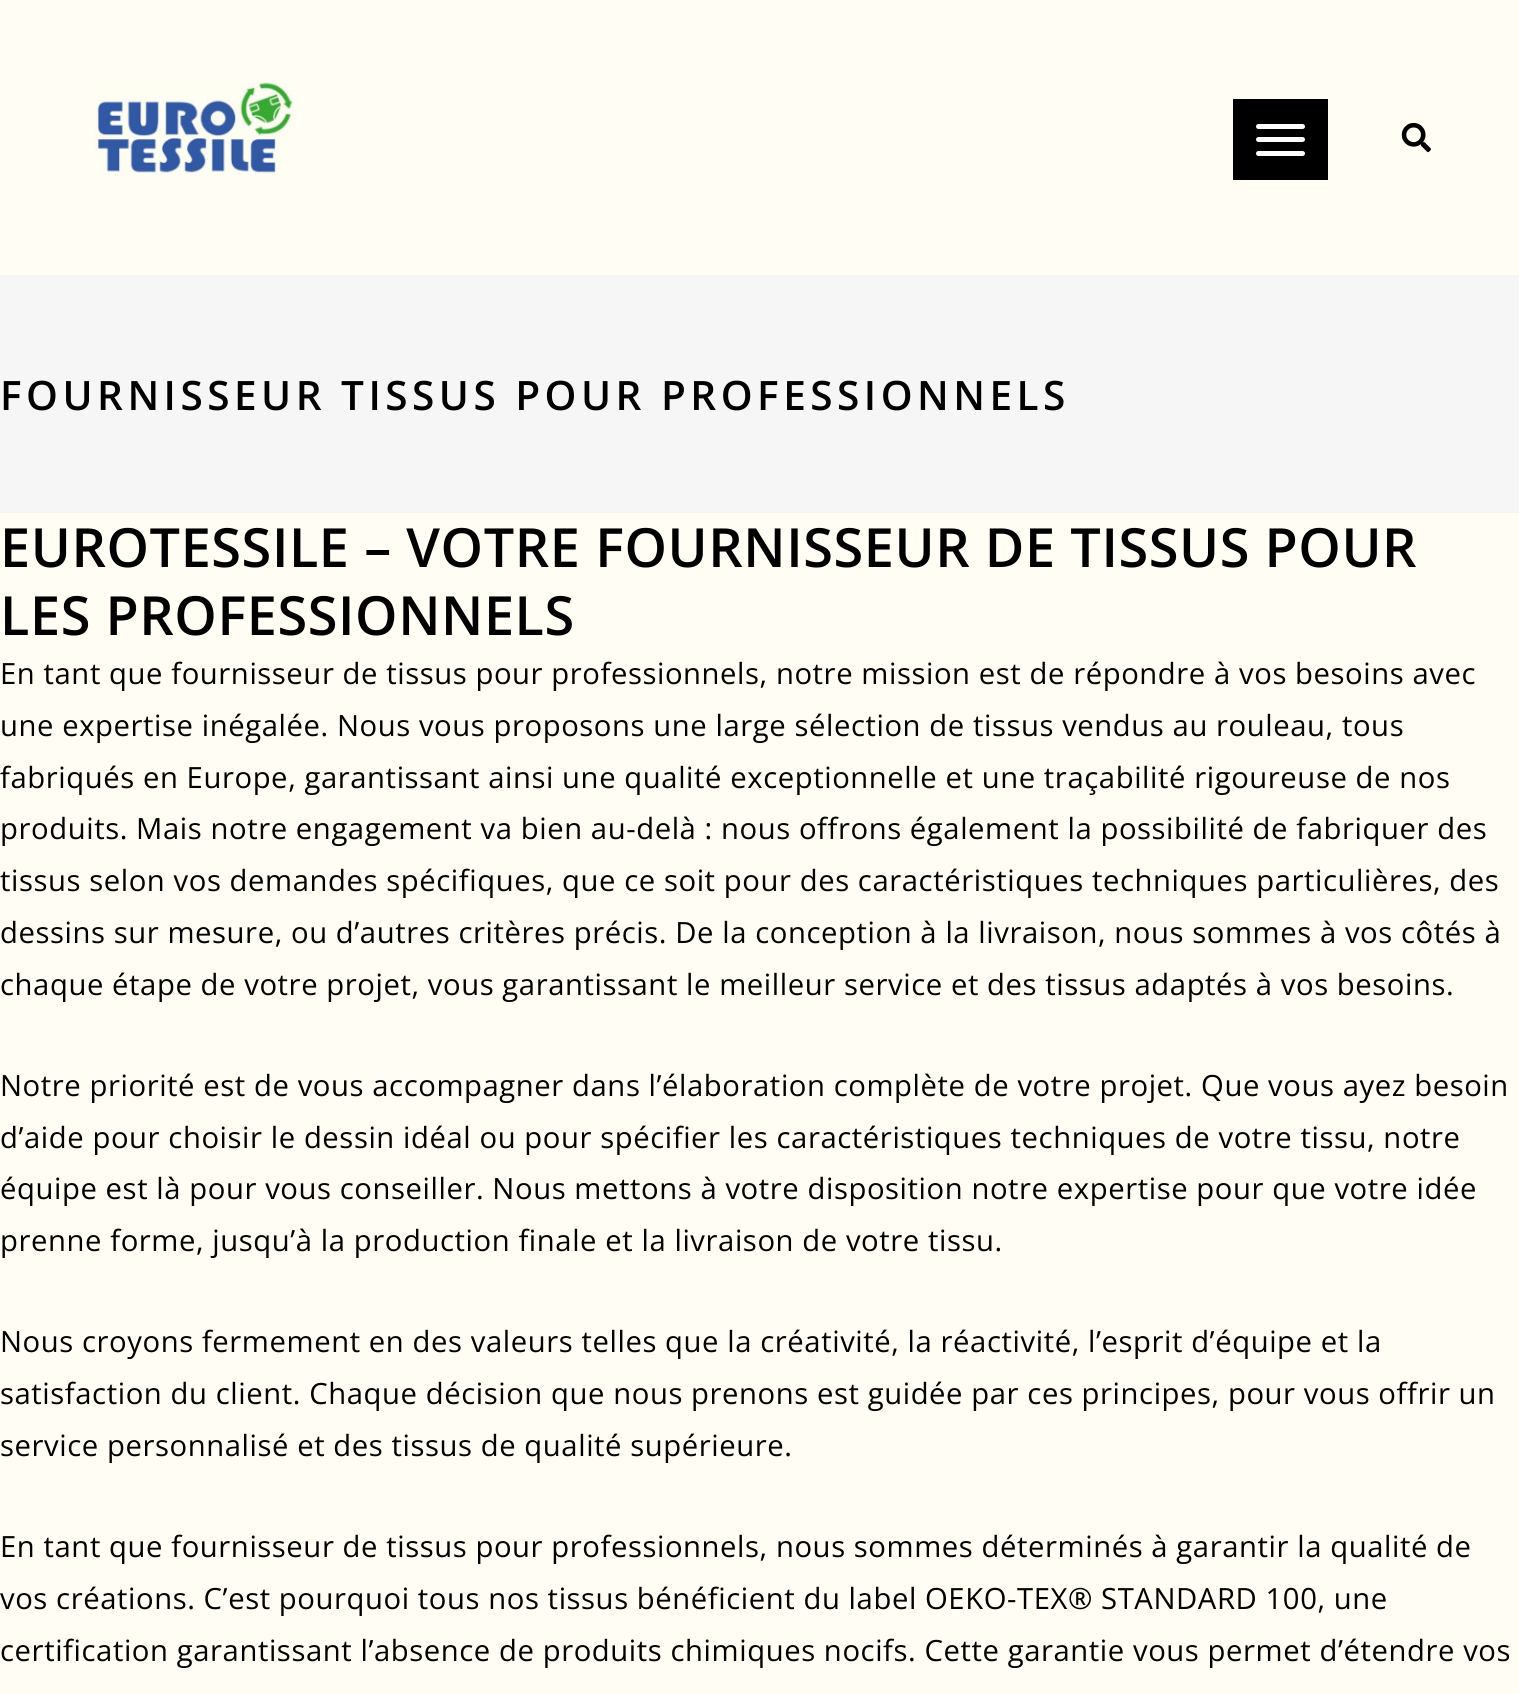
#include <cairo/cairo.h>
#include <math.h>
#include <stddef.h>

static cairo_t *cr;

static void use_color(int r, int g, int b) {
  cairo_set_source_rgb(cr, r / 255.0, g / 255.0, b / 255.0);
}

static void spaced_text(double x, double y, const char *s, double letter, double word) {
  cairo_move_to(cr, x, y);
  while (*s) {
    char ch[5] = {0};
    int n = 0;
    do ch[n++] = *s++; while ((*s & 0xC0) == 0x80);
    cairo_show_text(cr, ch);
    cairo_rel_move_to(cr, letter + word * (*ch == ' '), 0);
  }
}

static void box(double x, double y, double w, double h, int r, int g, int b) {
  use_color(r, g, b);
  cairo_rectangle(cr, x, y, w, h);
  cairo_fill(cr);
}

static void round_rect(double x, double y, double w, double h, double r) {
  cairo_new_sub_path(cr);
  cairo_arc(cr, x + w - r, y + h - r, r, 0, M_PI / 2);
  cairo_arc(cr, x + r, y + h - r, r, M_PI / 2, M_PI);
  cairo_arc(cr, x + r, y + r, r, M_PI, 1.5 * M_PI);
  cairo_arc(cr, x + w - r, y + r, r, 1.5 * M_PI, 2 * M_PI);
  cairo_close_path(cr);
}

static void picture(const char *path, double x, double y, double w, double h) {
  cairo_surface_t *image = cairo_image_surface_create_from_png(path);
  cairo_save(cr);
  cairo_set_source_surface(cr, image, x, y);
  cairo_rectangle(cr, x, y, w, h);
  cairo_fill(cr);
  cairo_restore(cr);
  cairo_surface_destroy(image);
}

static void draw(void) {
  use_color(255, 253, 244);
  cairo_paint(cr);
  picture("img_01.png", 95, 82, 199, 93);
  box(1233, 99, 95, 81, 0, 0, 0);
  use_color(255, 255, 255);
  round_rect(1256, 124, 49, 5, 2.5);
  cairo_fill(cr);
  round_rect(1256, 137, 49, 5, 2.5);
  cairo_fill(cr);
  round_rect(1256, 151, 49, 5, 2.5);
  cairo_fill(cr);
  picture("img_02.png", 1401, 122, 30, 31);
  box(0, 275, 1519, 238, 246, 246, 246);
  cairo_select_font_face(cr, "Open Sans SemiBold", CAIRO_FONT_SLANT_NORMAL, CAIRO_FONT_WEIGHT_NORMAL);
  cairo_set_font_size(cr, 40.5);
  use_color(0, 0, 0);
  spaced_text(0, 410, "FOURNISSEUR TISSUS POUR PROFESSIONNELS", 4.5, 0);
  cairo_set_font_size(cr, 54);
  spaced_text(0, 567, "EUROTESSILE – VOTRE FOURNISSEUR DE TISSUS POUR", 0.58, 0);
  spaced_text(0, 635, "LES PROFESSIONNELS", 0.58, 0);
  cairo_select_font_face(cr, "Open Sans", CAIRO_FONT_SLANT_NORMAL, CAIRO_FONT_WEIGHT_NORMAL);
  cairo_set_font_size(cr, 29.25);
  spaced_text(0, 684, "En tant que fournisseur de tissus pour professionnels, notre mission est de répondre à vos besoins avec", 0.58, 0);
  spaced_text(0, 736, "une expertise inégalée. Nous vous proposons une large sélection de tissus vendus au rouleau, tous", 0.58, 0);
  spaced_text(0, 788, "fabriqués en Europe, garantissant ainsi une qualité exceptionnelle et une traçabilité rigoureuse de nos", 0.58, 0);
  spaced_text(0, 839, "produits. Mais notre engagement va bien au-delà : nous offrons également la possibilité de fabriquer des", 0.58, 0);
  spaced_text(0, 891, "tissus selon vos demandes spécifiques, que ce soit pour des caractéristiques techniques particulières, des", 0.58, 0);
  spaced_text(0, 943, "dessins sur mesure, ou d’autres critères précis. De la conception à la livraison, nous sommes à vos côtés à", 0.58, 0);
  spaced_text(0, 995, "chaque étape de votre projet, vous garantissant le meilleur service et des tissus adaptés à vos besoins.", 0.58, 0);
  spaced_text(0, 1096, "Notre priorité est de vous accompagner dans l’élaboration complète de votre projet. Que vous ayez besoin", 0.58, 0);
  spaced_text(0, 1148, "d’aide pour choisir le dessin idéal ou pour spécifier les caractéristiques techniques de votre tissu, notre", 0.58, 0);
  spaced_text(0, 1199, "équipe est là pour vous conseiller. Nous mettons à votre disposition notre expertise pour que votre idée", 0.58, 0);
  spaced_text(0, 1251, "prenne forme, jusqu’à la production finale et la livraison de votre tissu.", 0.58, 0);
  spaced_text(0, 1352, "Nous croyons fermement en des valeurs telles que la créativité, la réactivité, l’esprit d’équipe et la", 0.58, 0);
  spaced_text(0, 1404, "satisfaction du client. Chaque décision que nous prenons est guidée par ces principes, pour vous offrir un", 0.58, 0);
  spaced_text(0, 1456, "service personnalisé et des tissus de qualité supérieure.", 0.58, 0);
  spaced_text(0, 1557, "En tant que fournisseur de tissus pour professionnels, nous sommes déterminés à garantir la qualité de", 0.58, 0);
  spaced_text(0, 1609, "vos créations. C’est pourquoi tous nos tissus bénéficient du label OEKO-TEX® STANDARD 100, une", 0.58, 0);
  spaced_text(0, 1661, "certification garantissant l’absence de produits chimiques nocifs. Cette garantie vous permet d’étendre vos", 0.58, 0);
}

int main(void) {
  cairo_surface_t *surface = cairo_image_surface_create(CAIRO_FORMAT_RGB24, 1519, 1694);
  cr = cairo_create(surface);
  cairo_font_options_t *options = cairo_font_options_create();
  cairo_font_options_set_hint_metrics(options, CAIRO_HINT_METRICS_OFF);
  cairo_font_options_set_hint_style(options, CAIRO_HINT_STYLE_NONE);
  cairo_set_font_options(cr, options);
  cairo_set_miter_limit(cr, 4);
  draw();
  cairo_surface_write_to_png(surface, "out.png");
  cairo_font_options_destroy(options);
  cairo_destroy(cr);
  cairo_surface_destroy(surface);
  return 0;
}
